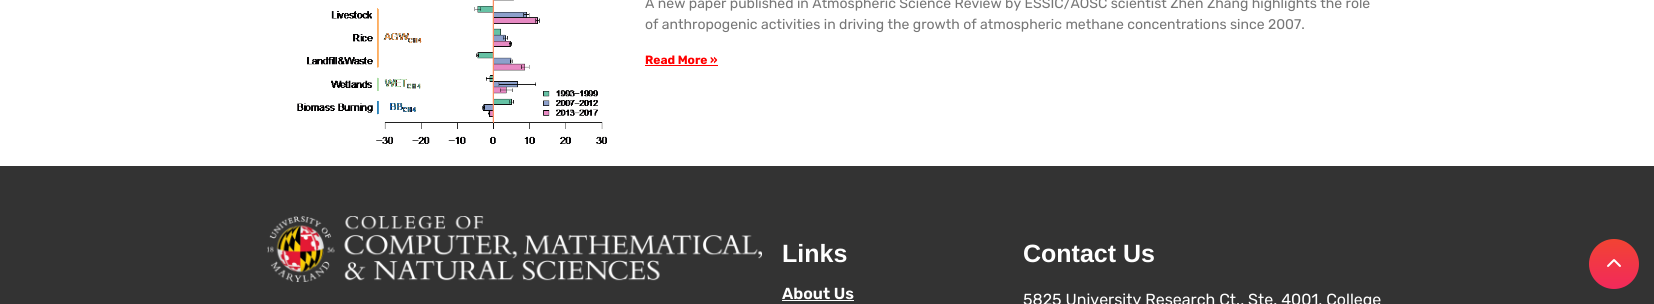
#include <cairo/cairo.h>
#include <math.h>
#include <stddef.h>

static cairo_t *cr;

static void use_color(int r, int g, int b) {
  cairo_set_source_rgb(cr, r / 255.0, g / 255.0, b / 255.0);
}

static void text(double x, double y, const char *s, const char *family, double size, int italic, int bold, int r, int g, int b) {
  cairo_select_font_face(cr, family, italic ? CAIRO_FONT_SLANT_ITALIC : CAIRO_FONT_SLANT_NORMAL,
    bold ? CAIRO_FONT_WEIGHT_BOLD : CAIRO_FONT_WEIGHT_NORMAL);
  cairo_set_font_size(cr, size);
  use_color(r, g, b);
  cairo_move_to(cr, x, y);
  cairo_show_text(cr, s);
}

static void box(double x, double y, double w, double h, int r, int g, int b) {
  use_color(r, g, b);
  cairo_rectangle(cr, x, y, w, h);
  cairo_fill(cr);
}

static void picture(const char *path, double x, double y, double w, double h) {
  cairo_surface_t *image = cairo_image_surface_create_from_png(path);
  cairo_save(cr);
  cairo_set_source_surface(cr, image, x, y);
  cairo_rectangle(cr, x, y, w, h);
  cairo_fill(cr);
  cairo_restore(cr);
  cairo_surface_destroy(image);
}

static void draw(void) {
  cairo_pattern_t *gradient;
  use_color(255, 255, 255);
  cairo_paint(cr);
  picture("img_01.png", 297, 0, 310, 144);
  box(645, 65, 73, 1, 255, 0, 0);
  box(0, 166, 1654, 138, 51, 51, 51);
  picture("img_02.png", 267, 216, 495, 66);
  box(782, 300, 72, 1, 255, 255, 255);
  gradient = cairo_pattern_create_linear(1614, 239, 1614, 289);
  cairo_pattern_add_color_stop_rgba(gradient, 0, 0.949, 0.263, 0.2, 1);
  cairo_pattern_add_color_stop_rgba(gradient, 1, 0.949, 0.161, 0.357, 1);
  cairo_set_source(cr, gradient);
  cairo_pattern_destroy(gradient);
  cairo_arc(cr, 1614, 264, 25, 0, 2 * M_PI);
  cairo_fill(cr);
  picture("img_03.png", 1607, 259, 14, 8);
  text(645, 8, "A new paper published in Atmospheric Science Review by ESSIC/AOSC scientist Zhen Zhang highlights the role", "Rubik", 14, 0, 0, 119, 119, 119);
  text(645, 29, "of anthropogenic activities in driving the growth of atmospheric methane concentrations since 2007.", "Rubik", 14, 0, 0, 119, 119, 119);
  text(645, 64, "Read More »", "Rubik", 12, 0, 1, 255, 0, 0);
  text(782, 262, "Links", "Liberation Sans", 25, 0, 1, 255, 255, 255);
  text(782, 299, "About Us", "Rubik SemiBold", 16, 0, 0, 255, 255, 255);
  text(1023, 262, "Contact Us", "Liberation Sans", 25, 0, 1, 255, 255, 255);
  text(1023, 305, "5825 University Research Ct., Ste. 4001, College", "Rubik", 16, 0, 0, 255, 255, 255);
}

int main(void) {
  cairo_surface_t *surface = cairo_image_surface_create(CAIRO_FORMAT_RGB24, 1654, 304);
  cr = cairo_create(surface);
  cairo_font_options_t *options = cairo_font_options_create();
  cairo_font_options_set_hint_metrics(options, CAIRO_HINT_METRICS_OFF);
  cairo_font_options_set_hint_style(options, CAIRO_HINT_STYLE_NONE);
  cairo_set_font_options(cr, options);
  cairo_set_miter_limit(cr, 4);
  draw();
  cairo_surface_write_to_png(surface, "out.png");
  cairo_font_options_destroy(options);
  cairo_destroy(cr);
  cairo_surface_destroy(surface);
  return 0;
}
